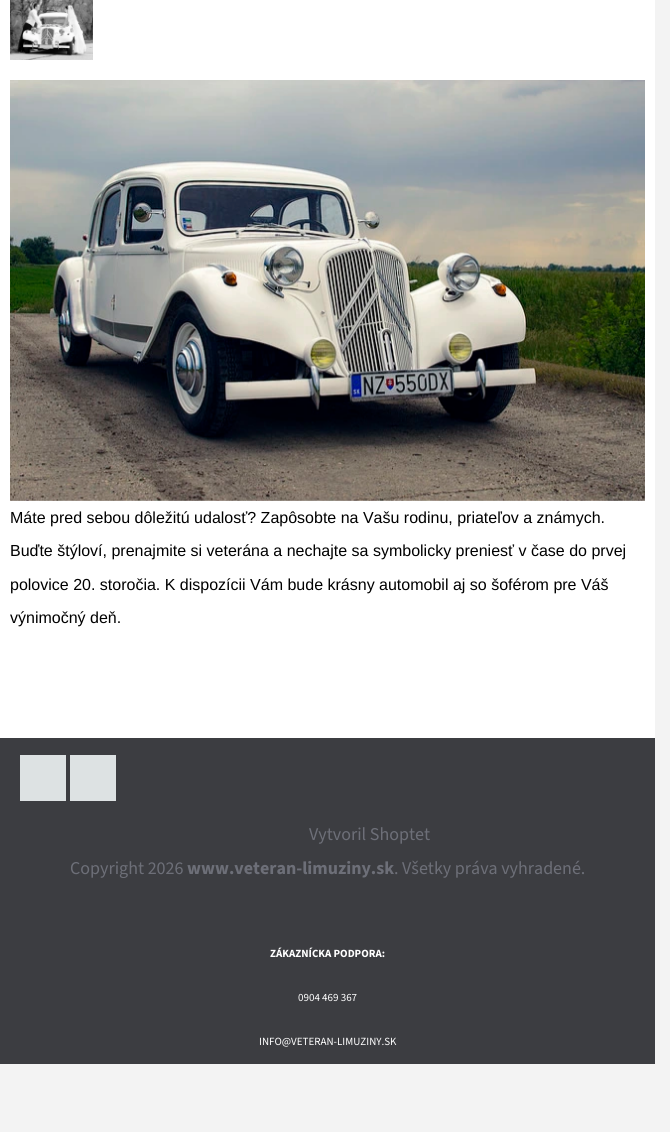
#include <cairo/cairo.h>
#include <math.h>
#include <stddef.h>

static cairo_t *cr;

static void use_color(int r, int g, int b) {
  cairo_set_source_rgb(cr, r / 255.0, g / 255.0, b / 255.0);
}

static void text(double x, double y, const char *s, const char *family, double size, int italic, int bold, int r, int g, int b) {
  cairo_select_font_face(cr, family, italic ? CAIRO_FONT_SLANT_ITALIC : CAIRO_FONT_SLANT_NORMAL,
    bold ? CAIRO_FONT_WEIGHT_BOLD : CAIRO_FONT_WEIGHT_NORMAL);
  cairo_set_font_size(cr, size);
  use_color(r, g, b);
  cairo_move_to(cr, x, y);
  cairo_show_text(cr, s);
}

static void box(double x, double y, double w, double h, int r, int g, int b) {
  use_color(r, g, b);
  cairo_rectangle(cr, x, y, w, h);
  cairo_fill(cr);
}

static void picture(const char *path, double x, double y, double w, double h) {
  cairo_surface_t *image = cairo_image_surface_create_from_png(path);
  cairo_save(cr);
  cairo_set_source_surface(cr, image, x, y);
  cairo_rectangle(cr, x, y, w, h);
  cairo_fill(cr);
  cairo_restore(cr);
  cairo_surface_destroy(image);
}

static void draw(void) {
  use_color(243, 243, 243);
  cairo_paint(cr);
  box(0, 0, 655, 738, 255, 255, 255);
  picture("img_01.png", 10, 0, 83, 60);
  picture("img_02.png", 10, 80, 635, 421);
  box(0, 738, 655, 326, 60, 61, 65);
  box(20, 755, 46, 46, 221, 226, 227);
  box(70, 755, 46, 46, 221, 226, 227);
  text(10, 523, "Máte pred sebou dôležitú udalosť? Zapôsobte na Vašu rodinu, priateľov a známych.", "Liberation Sans", 16, 0, 0, 0, 0, 0);
  text(10, 556, "Buďte štýloví, prenajmite si veterána a nechajte sa symbolicky preniesť v čase do prvej", "Liberation Sans", 16, 0, 0, 0, 0, 0);
  text(10, 590, "polovice 20. storočia. K dispozícii Vám bude krásny automobil aj so šoférom pre Váš", "Liberation Sans", 16, 0, 0, 0, 0, 0);
  text(10, 623, "výnimočný deň.", "Liberation Sans", 16, 0, 0, 0, 0, 0);
  text(309, 840, "Vytvoril Shoptet", "Source Sans 3", 18, 0, 0, 109, 111, 120);
  text(70, 874, "Copyright 2026", "Source Sans 3", 18, 0, 0, 109, 111, 120);
  text(187, 874, "www.veteran-limuziny.sk", "Source Sans 3", 18, 0, 1, 109, 111, 120);
  text(394, 874, ". Všetky práva vyhradené.", "Source Sans 3", 18, 0, 0, 109, 111, 120);
  text(270, 957, "ZÁKAZNÍCKA PODPORA:", "Source Sans 3", 11, 0, 1, 255, 255, 255);
  text(298, 1001, "0904 469 367", "Source Sans 3", 11, 0, 0, 255, 255, 255);
  text(259, 1045, "INFO@VETERAN-LIMUZINY.SK", "Source Sans 3", 11, 0, 0, 255, 255, 255);
}

int main(void) {
  cairo_surface_t *surface = cairo_image_surface_create(CAIRO_FORMAT_RGB24, 670, 1132);
  cr = cairo_create(surface);
  cairo_font_options_t *options = cairo_font_options_create();
  cairo_font_options_set_hint_metrics(options, CAIRO_HINT_METRICS_OFF);
  cairo_font_options_set_hint_style(options, CAIRO_HINT_STYLE_NONE);
  cairo_set_font_options(cr, options);
  cairo_set_miter_limit(cr, 4);
  draw();
  cairo_surface_write_to_png(surface, "out.png");
  cairo_font_options_destroy(options);
  cairo_destroy(cr);
  cairo_surface_destroy(surface);
  return 0;
}
